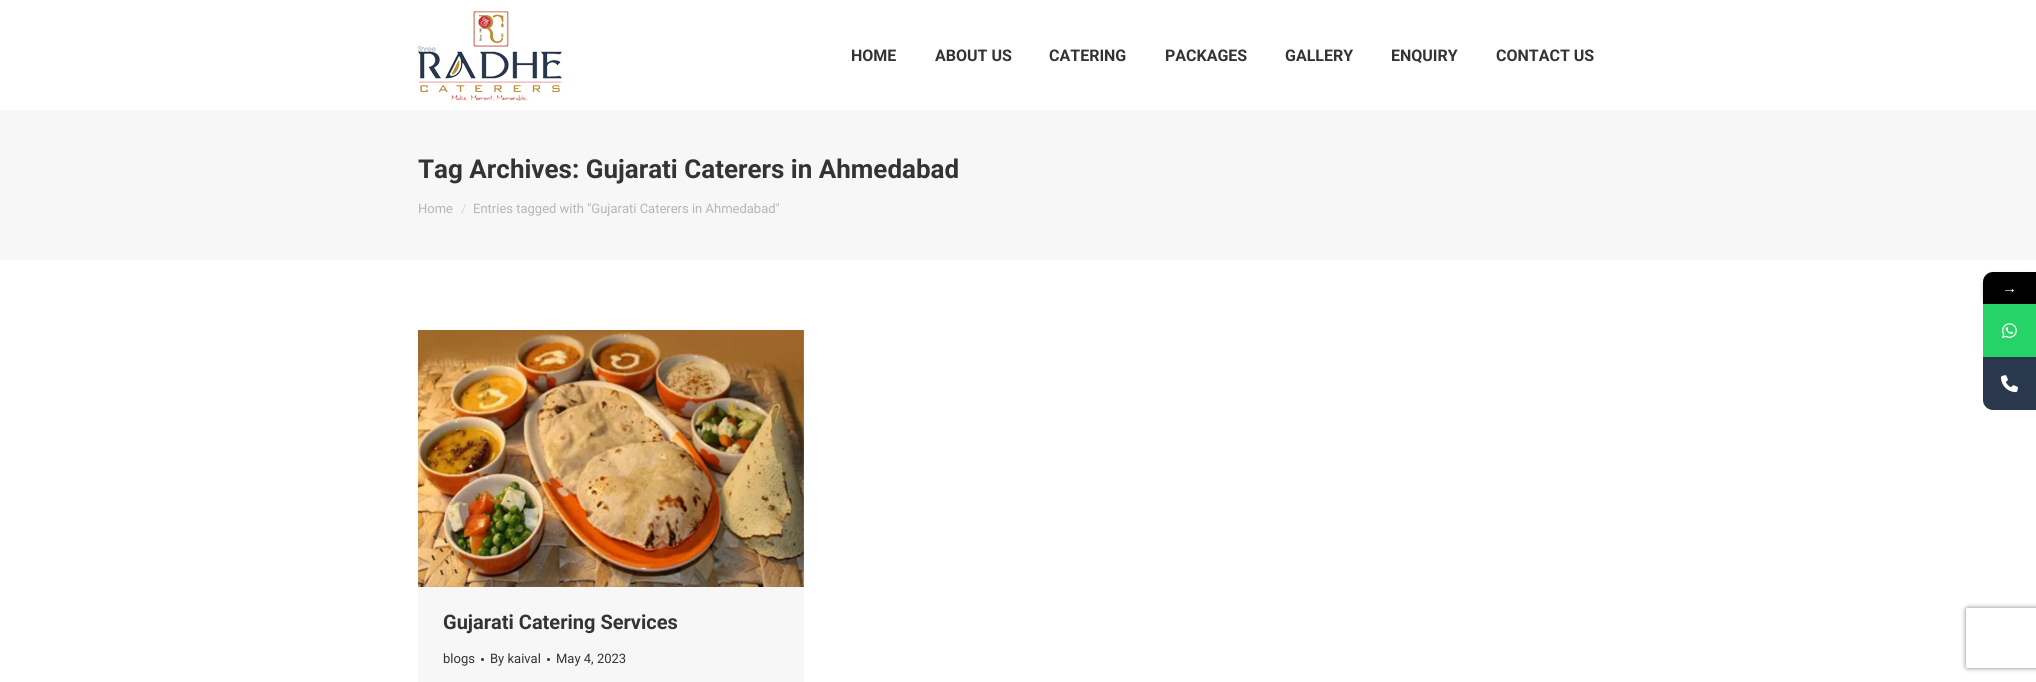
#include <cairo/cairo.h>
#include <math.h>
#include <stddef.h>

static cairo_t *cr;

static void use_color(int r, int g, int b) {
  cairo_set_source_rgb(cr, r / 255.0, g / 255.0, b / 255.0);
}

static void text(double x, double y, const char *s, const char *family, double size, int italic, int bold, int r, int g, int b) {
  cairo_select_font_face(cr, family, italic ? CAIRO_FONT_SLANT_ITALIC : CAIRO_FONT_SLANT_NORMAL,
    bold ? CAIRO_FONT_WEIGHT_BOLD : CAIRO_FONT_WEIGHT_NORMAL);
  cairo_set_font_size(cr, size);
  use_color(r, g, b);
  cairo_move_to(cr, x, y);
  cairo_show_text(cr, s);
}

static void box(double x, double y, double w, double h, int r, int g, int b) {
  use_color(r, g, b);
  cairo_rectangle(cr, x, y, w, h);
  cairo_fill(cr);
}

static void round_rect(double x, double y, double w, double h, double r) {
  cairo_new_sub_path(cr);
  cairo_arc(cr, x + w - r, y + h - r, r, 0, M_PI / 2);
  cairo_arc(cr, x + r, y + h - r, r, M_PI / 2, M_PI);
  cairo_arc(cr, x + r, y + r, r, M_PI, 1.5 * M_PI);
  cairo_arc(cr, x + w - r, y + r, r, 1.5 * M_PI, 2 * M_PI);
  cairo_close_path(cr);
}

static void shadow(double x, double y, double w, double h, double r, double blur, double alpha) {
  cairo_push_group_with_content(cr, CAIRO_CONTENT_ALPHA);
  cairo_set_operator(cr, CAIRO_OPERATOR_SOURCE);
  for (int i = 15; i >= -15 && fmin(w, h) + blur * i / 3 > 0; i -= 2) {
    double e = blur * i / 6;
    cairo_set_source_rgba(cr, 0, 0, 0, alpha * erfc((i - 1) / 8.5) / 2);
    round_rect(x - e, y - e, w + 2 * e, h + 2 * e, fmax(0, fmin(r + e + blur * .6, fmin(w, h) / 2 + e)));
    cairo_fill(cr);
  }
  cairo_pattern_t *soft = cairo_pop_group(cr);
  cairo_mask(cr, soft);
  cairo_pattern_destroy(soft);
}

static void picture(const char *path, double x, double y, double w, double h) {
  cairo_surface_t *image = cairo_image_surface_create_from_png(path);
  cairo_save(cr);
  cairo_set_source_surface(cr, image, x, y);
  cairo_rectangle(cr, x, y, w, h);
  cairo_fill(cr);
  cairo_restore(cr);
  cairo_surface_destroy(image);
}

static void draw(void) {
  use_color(255, 255, 255);
  cairo_paint(cr);
  picture("img_01.png", 418, 11, 144, 90);
  box(0, 110, 2036, 150, 247, 247, 247);
  box(418, 330, 386, 352, 247, 247, 247);
  picture("img_02.png", 418, 330, 386, 257);
  use_color(51, 51, 51);
  cairo_arc(cr, 482.5, 659.5, 1.5, 0, 2 * M_PI);
  cairo_fill(cr);
  cairo_arc(cr, 548.5, 659.5, 1.5, 0, 2 * M_PI);
  cairo_fill(cr);
  use_color(0, 0, 0);
  shadow(1983, 275, 53, 32, 10, 3, 0.16);
  use_color(0, 0, 0);
  cairo_new_path(cr);
  cairo_move_to(cr, 1993, 272);
  cairo_line_to(cr, 2036, 272);
  cairo_line_to(cr, 2036, 304);
  cairo_line_to(cr, 1983, 304);
  cairo_line_to(cr, 1983, 282);
  cairo_curve_to(cr, 1983, 276.5, 1987.5, 272, 1993, 272);
  cairo_close_path(cr);
  cairo_fill(cr);
  box(1983, 304, 53, 53, 38, 211, 103);
  picture("img_03.png", 2002, 323, 15, 15);
  use_color(41, 56, 77);
  cairo_new_path(cr);
  cairo_move_to(cr, 1983, 357);
  cairo_line_to(cr, 2036, 357);
  cairo_line_to(cr, 2036, 410);
  cairo_line_to(cr, 1993, 410);
  cairo_curve_to(cr, 1987.5, 410, 1983, 405.5, 1983, 400);
  cairo_close_path(cr);
  cairo_fill(cr);
  picture("img_04.png", 2001, 375, 17, 18);
  cairo_save(cr);
  cairo_set_fill_rule(cr, CAIRO_FILL_RULE_EVEN_ODD);
  cairo_new_path(cr);
  cairo_move_to(cr, 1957, 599);
  cairo_line_to(cr, 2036, 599);
  cairo_line_to(cr, 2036, 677);
  cairo_line_to(cr, 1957, 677);
  cairo_close_path(cr);
  cairo_move_to(cr, 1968, 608);
  cairo_line_to(cr, 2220, 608);
  cairo_curve_to(cr, 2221, 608, 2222, 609, 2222, 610);
  cairo_line_to(cr, 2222, 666);
  cairo_curve_to(cr, 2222, 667, 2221, 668, 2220, 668);
  cairo_line_to(cr, 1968, 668);
  cairo_curve_to(cr, 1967, 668, 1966, 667, 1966, 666);
  cairo_line_to(cr, 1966, 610);
  cairo_curve_to(cr, 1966, 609, 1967, 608, 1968, 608);
  cairo_close_path(cr);
  cairo_clip(cr);
  use_color(128, 128, 128);
  shadow(1966, 608, 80, 60, 2, 2.5, 1);
  cairo_restore(cr);
  text(851, 61, "HOME", "Roboto", 16, 0, 1, 51, 51, 51);
  text(935, 61, "ABOUT US", "Roboto", 16, 0, 1, 51, 51, 51);
  text(1049, 61, "CATERING", "Roboto", 16, 0, 1, 51, 51, 51);
  text(1165, 61, "PACKAGES", "Roboto", 16, 0, 1, 51, 51, 51);
  text(1285, 61, "GALLERY", "Roboto", 16, 0, 1, 51, 51, 51);
  text(1391, 61, "ENQUIRY", "Roboto", 16, 0, 1, 51, 51, 51);
  text(1496, 61, "CONTACT US", "Roboto", 16, 0, 1, 51, 51, 51);
  text(418, 178, "Tag Archives: Gujarati Caterers in Ahmedabad", "Roboto", 26, 0, 1, 51, 51, 51);
  text(418, 213, "Home", "Roboto", 13, 0, 0, 180, 181, 187);
  text(461, 213, "/", "Roboto", 13, 0, 0, 214, 214, 217);
  text(473, 213, "Entries tagged with \"Gujarati Caterers in Ahmedabad\"", "Roboto", 13, 0, 0, 180, 181, 187);
  text(443, 629, "Gujarati Catering Services", "Roboto", 20, 0, 1, 51, 51, 51);
  text(443, 663, "blogs", "Roboto", 13, 0, 0, 51, 51, 51);
  text(490, 663, "By kaival", "Roboto", 13, 0, 0, 51, 51, 51);
  text(556, 663, "May 4, 2023", "Roboto", 13, 0, 0, 51, 51, 51);
  text(2002, 293, "→", "Liberation Serif", 15, 0, 0, 255, 255, 255);
}

int main(void) {
  cairo_surface_t *surface = cairo_image_surface_create(CAIRO_FORMAT_RGB24, 2036, 682);
  cr = cairo_create(surface);
  cairo_font_options_t *options = cairo_font_options_create();
  cairo_font_options_set_hint_metrics(options, CAIRO_HINT_METRICS_OFF);
  cairo_font_options_set_hint_style(options, CAIRO_HINT_STYLE_NONE);
  cairo_set_font_options(cr, options);
  cairo_set_miter_limit(cr, 4);
  draw();
  cairo_surface_write_to_png(surface, "out.png");
  cairo_font_options_destroy(options);
  cairo_destroy(cr);
  cairo_surface_destroy(surface);
  return 0;
}
